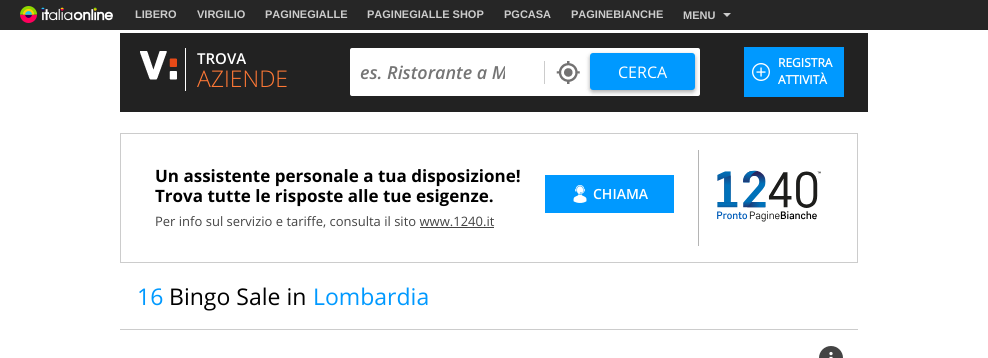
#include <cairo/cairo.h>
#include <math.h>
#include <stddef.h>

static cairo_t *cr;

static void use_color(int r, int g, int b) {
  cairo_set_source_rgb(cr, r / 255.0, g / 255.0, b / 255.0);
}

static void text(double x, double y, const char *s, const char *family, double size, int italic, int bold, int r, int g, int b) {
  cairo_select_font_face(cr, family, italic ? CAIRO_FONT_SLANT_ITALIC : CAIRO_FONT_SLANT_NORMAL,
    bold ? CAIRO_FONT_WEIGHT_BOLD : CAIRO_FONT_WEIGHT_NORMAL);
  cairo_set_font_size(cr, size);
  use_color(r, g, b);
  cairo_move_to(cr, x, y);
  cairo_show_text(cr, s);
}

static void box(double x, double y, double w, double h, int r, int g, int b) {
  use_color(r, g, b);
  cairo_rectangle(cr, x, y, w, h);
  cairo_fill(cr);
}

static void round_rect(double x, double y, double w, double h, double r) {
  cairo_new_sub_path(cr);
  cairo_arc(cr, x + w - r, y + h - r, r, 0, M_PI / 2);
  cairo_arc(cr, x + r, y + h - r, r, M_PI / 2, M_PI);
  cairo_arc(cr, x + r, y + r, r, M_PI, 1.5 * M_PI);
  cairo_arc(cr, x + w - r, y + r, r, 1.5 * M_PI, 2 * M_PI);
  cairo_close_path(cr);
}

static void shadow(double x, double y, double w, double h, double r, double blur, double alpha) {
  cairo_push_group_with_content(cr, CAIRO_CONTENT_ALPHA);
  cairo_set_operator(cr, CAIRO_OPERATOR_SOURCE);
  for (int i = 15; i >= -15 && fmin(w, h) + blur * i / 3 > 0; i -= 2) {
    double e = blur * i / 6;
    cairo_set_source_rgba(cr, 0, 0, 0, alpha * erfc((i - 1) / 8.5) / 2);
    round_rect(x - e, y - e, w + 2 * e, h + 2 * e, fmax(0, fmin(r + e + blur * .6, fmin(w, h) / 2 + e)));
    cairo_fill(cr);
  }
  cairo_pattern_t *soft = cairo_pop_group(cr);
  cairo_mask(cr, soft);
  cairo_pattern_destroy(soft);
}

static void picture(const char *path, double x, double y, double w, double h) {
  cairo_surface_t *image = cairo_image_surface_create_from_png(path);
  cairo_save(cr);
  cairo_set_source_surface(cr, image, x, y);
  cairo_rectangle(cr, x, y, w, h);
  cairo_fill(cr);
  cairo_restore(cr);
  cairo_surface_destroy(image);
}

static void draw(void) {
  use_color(255, 255, 255);
  cairo_paint(cr);
  box(0, 0, 988, 30, 38, 38, 38);
  picture("img_01.png", 20, 6, 93, 17);
  use_color(204, 204, 204);
  cairo_new_path(cr);
  cairo_move_to(cr, 723, 13);
  cairo_line_to(cr, 731, 13);
  cairo_line_to(cr, 727, 17);
  cairo_close_path(cr);
  cairo_fill(cr);
  box(120, 33, 748, 79, 34, 34, 34);
  picture("img_02.png", 140, 51, 37, 29);
  box(185, 48, 1, 43, 255, 255, 255);
  round_rect(350, 48, 350, 48, 2);
  cairo_fill(cr);
  picture("img_03.png", 556, 61, 24, 23);
  box(544, 61, 1, 23, 204, 204, 204);
  use_color(0, 0, 0);
  shadow(590, 55, 105, 37, 3, 3, 0.12);
  shadow(590, 55, 105, 37, 3, 2, 0.24);
  use_color(0, 153, 255);
  round_rect(590, 53, 105, 37, 3);
  cairo_fill(cr);
  box(744, 47, 100, 50, 0, 153, 255);
  picture("img_04.png", 752, 63, 18, 18);
  cairo_rectangle(cr, 120.5, 133.5, 737, 129);
  use_color(204, 204, 204);
  cairo_set_line_width(cr, 1);
  cairo_stroke(cr);
  box(420, 227, 74, 1, 68, 68, 68);
  box(545, 175, 129, 38, 0, 153, 255);
  picture("img_05.png", 573, 185, 14, 18);
  box(698, 150, 1, 96, 180, 180, 180);
  picture("img_06.png", 717, 170, 104, 52);
  box(120, 329, 738, 1, 204, 204, 204);
  picture("img_07.png", 819, 346, 24, 12);
  text(135, 18, "LIBERO", "Liberation Sans", 11, 0, 1, 204, 204, 204);
  text(197, 18, "VIRGILIO", "Liberation Sans", 11, 0, 1, 204, 204, 204);
  text(265, 18, "PAGINEGIALLE", "Liberation Sans", 11, 0, 1, 204, 204, 204);
  text(367, 18, "PAGINEGIALLE SHOP", "Liberation Sans", 11, 0, 1, 204, 204, 204);
  text(504, 18, "PGCASA", "Liberation Sans", 11, 0, 1, 204, 204, 204);
  text(571, 18, "PAGINEBIANCHE", "Liberation Sans", 11, 0, 1, 204, 204, 204);
  text(683, 19, "MENU", "Liberation Sans", 11, 0, 1, 204, 204, 204);
  text(197, 64, "TROVA", "Open Sans SemiBold", 15, 0, 0, 255, 255, 255);
  text(197, 87, "AZIENDE", "Open Sans Light", 23, 0, 0, 255, 120, 53);
  cairo_save(cr);
  cairo_rectangle(cr, 360, 60, 145, 24);
  cairo_clip(cr);
  text(360, 79, "es. Ristorante a M", "Open Sans SemiBold", 18, 1, 0, 117, 117, 117);
  cairo_restore(cr);
  text(618, 78, "CERCA", "Open Sans", 16, 0, 0, 255, 255, 255);
  text(778, 67, "REGISTRA", "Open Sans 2", 12, 0, 1, 255, 255, 255);
  text(778, 84, "ATTIVITÀ", "Open Sans 2", 12, 0, 1, 255, 255, 255);
  text(155, 182, "Un assistente personale a tua disposizione!", "Open Sans", 17, 0, 1, 0, 0, 0);
  text(155, 202, "Trova tutte le risposte alle tue esigenze.", "Open Sans", 17, 0, 1, 0, 0, 0);
  text(155, 226, "Per info sul servizio e tariffe, consulta il sito www.1240.it", "Open Sans", 13, 0, 0, 68, 68, 68);
  text(593, 199, "CHIAMA", "Open Sans SemiBold", 14, 0, 0, 255, 255, 255);
  text(137, 305, "16", "Open Sans", 23, 0, 0, 0, 153, 255);
  text(169, 305, "Bingo Sale in", "Open Sans", 23, 0, 0, 0, 0, 0);
  text(313, 305, "Lombardia", "Open Sans", 23, 0, 0, 0, 153, 255);
}

int main(void) {
  cairo_surface_t *surface = cairo_image_surface_create(CAIRO_FORMAT_RGB24, 988, 358);
  cr = cairo_create(surface);
  cairo_font_options_t *options = cairo_font_options_create();
  cairo_font_options_set_hint_metrics(options, CAIRO_HINT_METRICS_OFF);
  cairo_font_options_set_hint_style(options, CAIRO_HINT_STYLE_NONE);
  cairo_set_font_options(cr, options);
  cairo_set_miter_limit(cr, 4);
  draw();
  cairo_surface_write_to_png(surface, "out.png");
  cairo_font_options_destroy(options);
  cairo_destroy(cr);
  cairo_surface_destroy(surface);
  return 0;
}
